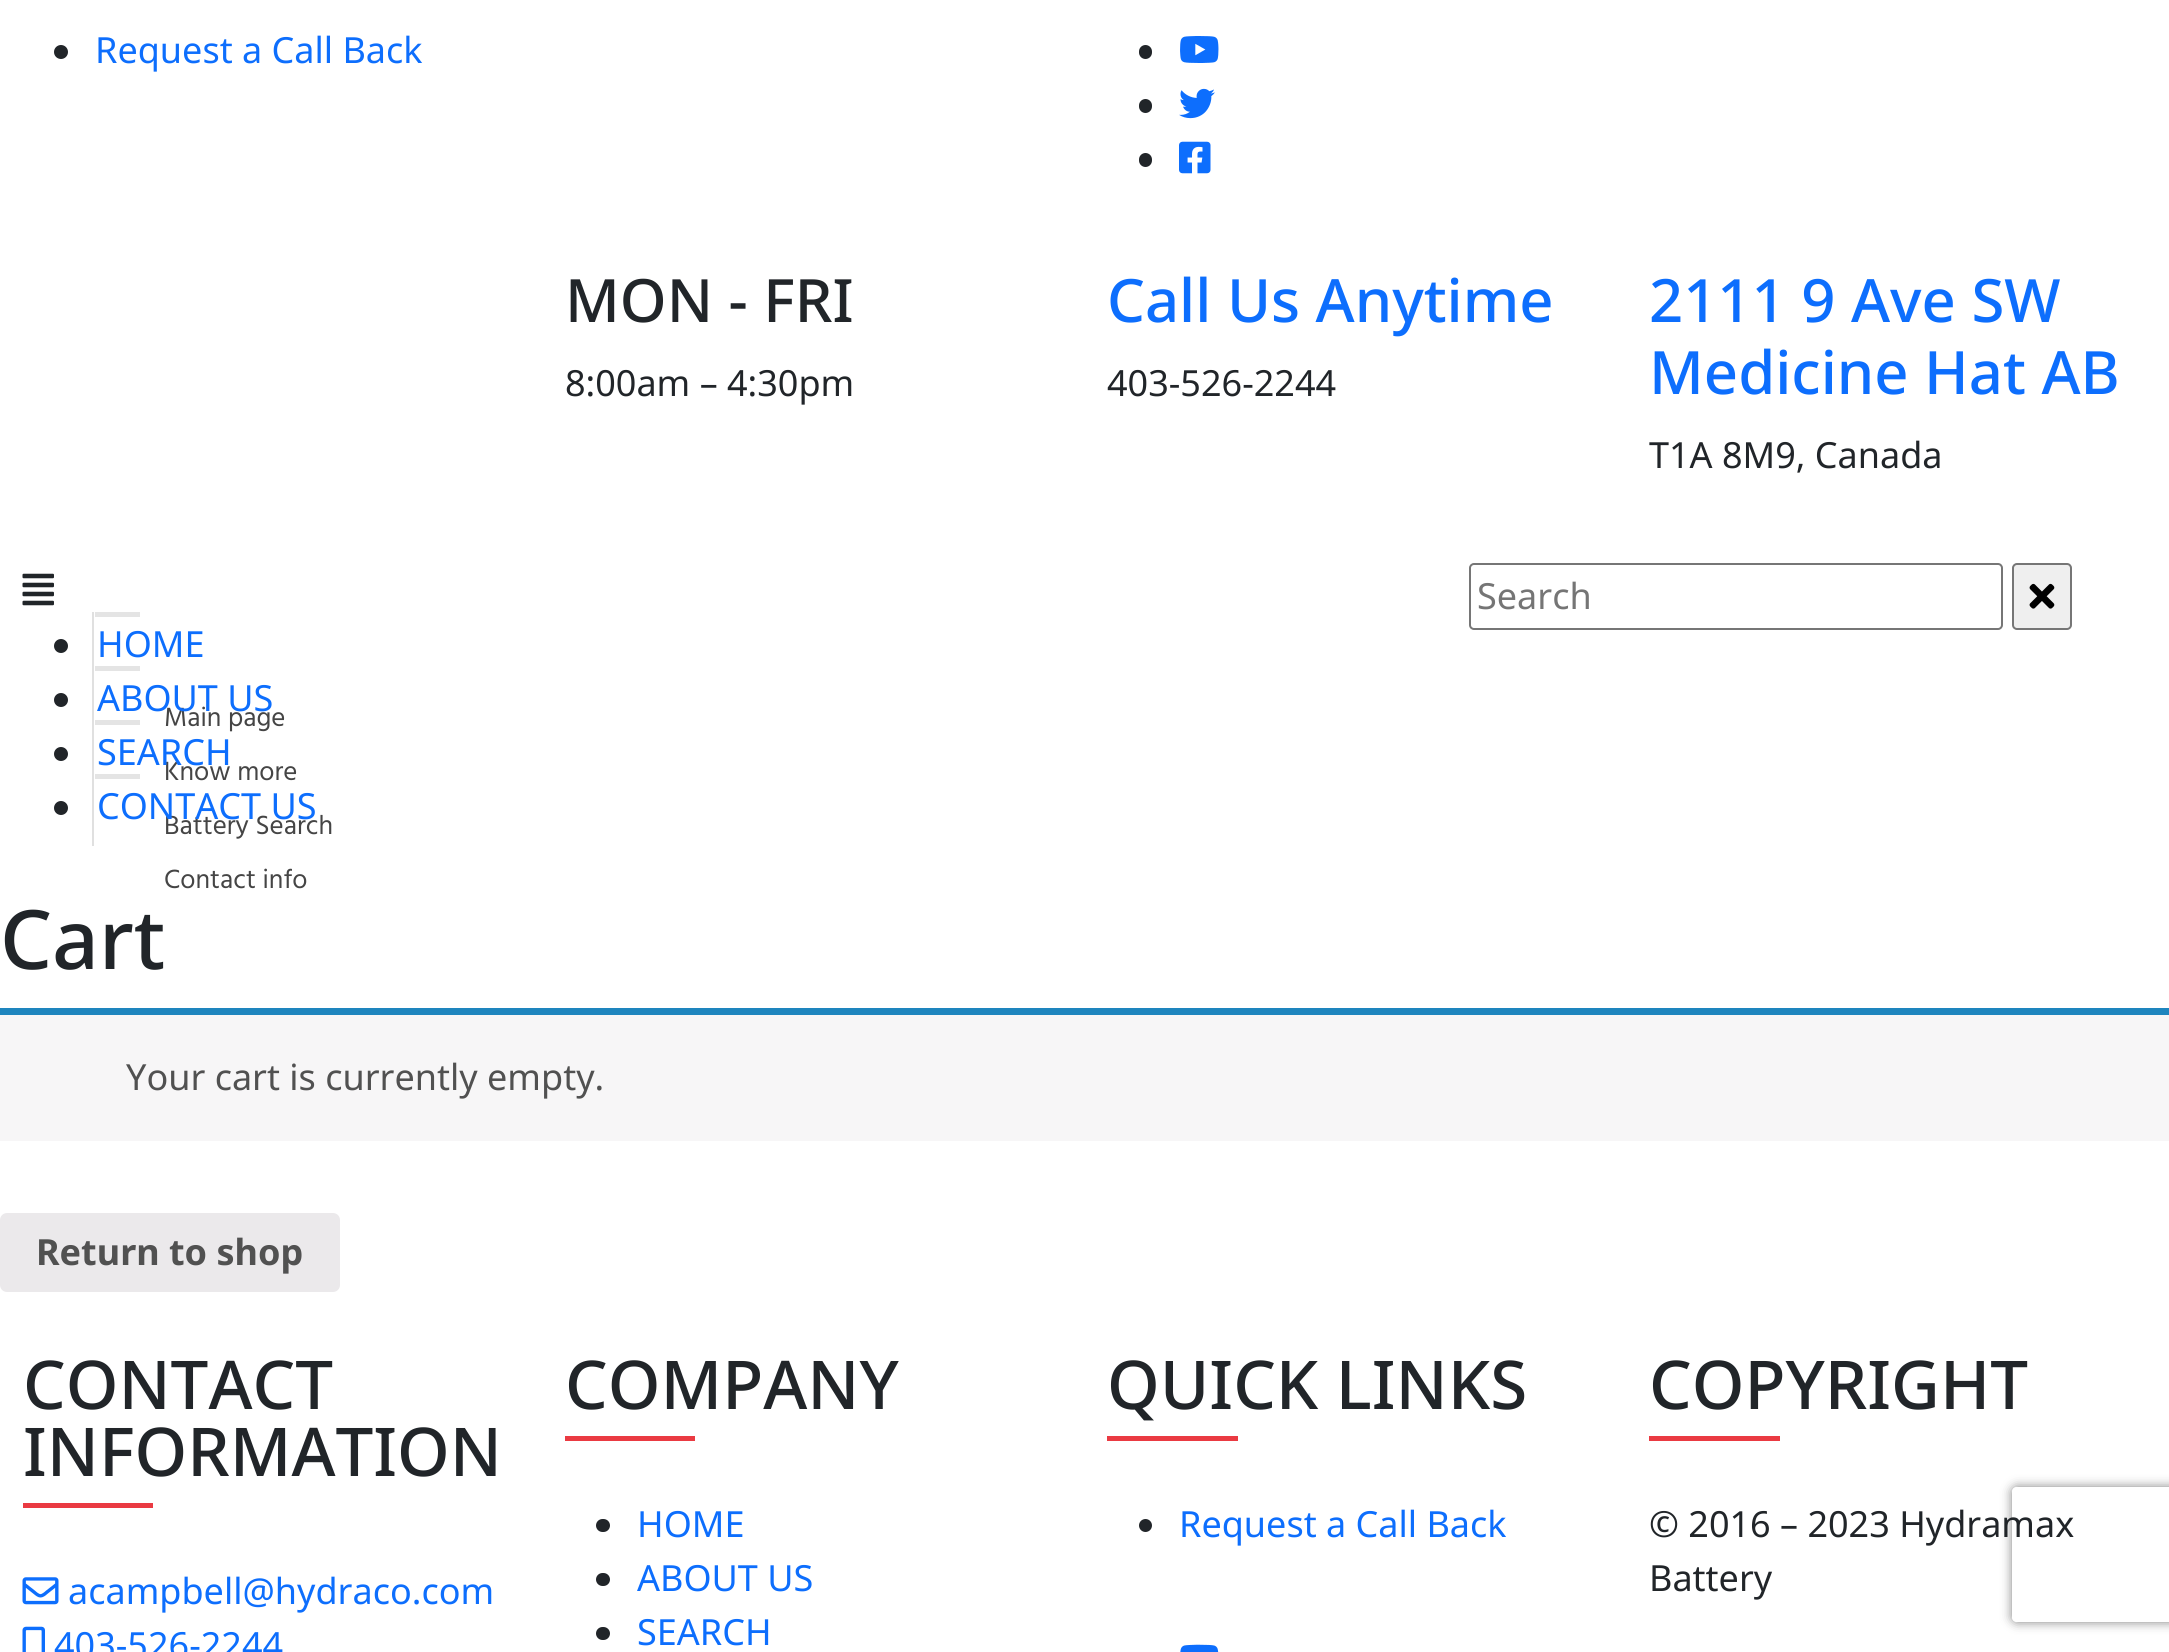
#include <cairo/cairo.h>
#include <math.h>
#include <stddef.h>

static cairo_t *cr;

static void use_color(int r, int g, int b) {
  cairo_set_source_rgb(cr, r / 255.0, g / 255.0, b / 255.0);
}

static void text(double x, double y, const char *s, const char *family, double size, int italic, int bold, int r, int g, int b) {
  cairo_select_font_face(cr, family, italic ? CAIRO_FONT_SLANT_ITALIC : CAIRO_FONT_SLANT_NORMAL,
    bold ? CAIRO_FONT_WEIGHT_BOLD : CAIRO_FONT_WEIGHT_NORMAL);
  cairo_set_font_size(cr, size);
  use_color(r, g, b);
  cairo_move_to(cr, x, y);
  cairo_show_text(cr, s);
}

static void box(double x, double y, double w, double h, int r, int g, int b) {
  use_color(r, g, b);
  cairo_rectangle(cr, x, y, w, h);
  cairo_fill(cr);
}

static void round_rect(double x, double y, double w, double h, double r) {
  cairo_new_sub_path(cr);
  cairo_arc(cr, x + w - r, y + h - r, r, 0, M_PI / 2);
  cairo_arc(cr, x + r, y + h - r, r, M_PI / 2, M_PI);
  cairo_arc(cr, x + r, y + r, r, M_PI, 1.5 * M_PI);
  cairo_arc(cr, x + w - r, y + r, r, 1.5 * M_PI, 2 * M_PI);
  cairo_close_path(cr);
}

static void shadow(double x, double y, double w, double h, double r, double blur, double alpha) {
  cairo_push_group_with_content(cr, CAIRO_CONTENT_ALPHA);
  cairo_set_operator(cr, CAIRO_OPERATOR_SOURCE);
  for (int i = 15; i >= -15 && fmin(w, h) + blur * i / 3 > 0; i -= 2) {
    double e = blur * i / 6;
    cairo_set_source_rgba(cr, 0, 0, 0, alpha * erfc((i - 1) / 8.5) / 2);
    round_rect(x - e, y - e, w + 2 * e, h + 2 * e, fmax(0, fmin(r + e + blur * .6, fmin(w, h) / 2 + e)));
    cairo_fill(cr);
  }
  cairo_pattern_t *soft = cairo_pop_group(cr);
  cairo_mask(cr, soft);
  cairo_pattern_destroy(soft);
}

static void picture(const char *path, double x, double y, double w, double h) {
  cairo_surface_t *image = cairo_image_surface_create_from_png(path);
  cairo_save(cr);
  cairo_set_source_surface(cr, image, x, y);
  cairo_rectangle(cr, x, y, w, h);
  cairo_fill(cr);
  cairo_restore(cr);
  cairo_surface_destroy(image);
}

static void draw(void) {
  use_color(255, 255, 255);
  cairo_paint(cr);
  use_color(33, 37, 41);
  cairo_arc(cr, 61, 52, 7, 0, 2 * M_PI);
  cairo_fill(cr);
  round_rect(1139, 45, 13, 14, 6.5);
  cairo_fill(cr);
  picture("img_01.png", 1180, 36, 39, 27);
  round_rect(1139, 99, 13, 14, 6.5);
  cairo_fill(cr);
  picture("img_02.png", 1179, 88, 36, 31);
  round_rect(1139, 153, 13, 14, 6.5);
  cairo_fill(cr);
  picture("img_03.png", 1179, 141, 32, 33);
  round_rect(1470, 564, 532, 65, 4);
  use_color(118, 118, 118);
  cairo_stroke(cr);
  use_color(239, 239, 239);
  round_rect(2013, 564, 58, 65, 4);
  cairo_fill_preserve(cr);
  use_color(118, 118, 118);
  cairo_stroke(cr);
  picture("img_04.png", 2029, 583, 26, 26);
  picture("img_05.png", 22, 573, 32, 33);
  use_color(33, 37, 41);
  cairo_arc(cr, 61, 646, 7, 0, 2 * M_PI);
  cairo_fill(cr);
  box(92, 612, 2, 234, 224, 224, 224);
  box(95, 612, 45, 5, 228, 228, 228);
  use_color(33, 37, 41);
  cairo_arc(cr, 61, 700, 7, 0, 2 * M_PI);
  cairo_fill(cr);
  box(95, 666, 45, 5, 228, 228, 228);
  use_color(33, 37, 41);
  cairo_arc(cr, 61, 754, 7, 0, 2 * M_PI);
  cairo_fill(cr);
  box(95, 720, 45, 5, 228, 228, 228);
  use_color(33, 37, 41);
  cairo_arc(cr, 61, 808, 7, 0, 2 * M_PI);
  cairo_fill(cr);
  box(95, 774, 45, 5, 228, 228, 228);
  box(0, 1015, 2169, 126, 247, 246, 247);
  box(0, 1008, 2169, 7, 30, 133, 190);
  use_color(235, 233, 235);
  round_rect(0, 1213, 340, 79, 7);
  cairo_fill(cr);
  box(23, 1503, 130, 5, 234, 58, 66);
  picture("img_06.png", 22, 1577, 37, 28);
  picture("img_07.png", 22, 1626, 23, 26);
  box(565, 1436, 130, 5, 234, 58, 66);
  use_color(33, 37, 41);
  round_rect(596, 1519, 14, 13, 6.5);
  cairo_fill(cr);
  round_rect(596, 1573, 14, 13, 6.5);
  cairo_fill(cr);
  round_rect(596, 1627, 14, 13, 6.5);
  cairo_fill(cr);
  box(1107, 1436, 131, 5, 234, 58, 66);
  use_color(33, 37, 41);
  cairo_arc(cr, 1145.5, 1525.5, 6.5, 0, 2 * M_PI);
  cairo_fill(cr);
  picture("img_08.png", 1180, 1644, 39, 8);
  box(1649, 1436, 131, 5, 234, 58, 66);
  cairo_save(cr);
  cairo_set_fill_rule(cr, CAIRO_FILL_RULE_EVEN_ODD);
  cairo_new_path(cr);
  cairo_move_to(cr, 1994, 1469);
  cairo_line_to(cr, 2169, 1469);
  cairo_line_to(cr, 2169, 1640);
  cairo_line_to(cr, 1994, 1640);
  cairo_close_path(cr);
  cairo_move_to(cr, 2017, 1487);
  cairo_line_to(cr, 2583, 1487);
  cairo_curve_to(cr, 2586, 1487, 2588, 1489, 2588, 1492);
  cairo_line_to(cr, 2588, 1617);
  cairo_curve_to(cr, 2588, 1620, 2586, 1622, 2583, 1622);
  cairo_line_to(cr, 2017, 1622);
  cairo_curve_to(cr, 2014, 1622, 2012, 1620, 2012, 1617);
  cairo_line_to(cr, 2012, 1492);
  cairo_curve_to(cr, 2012, 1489, 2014, 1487, 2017, 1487);
  cairo_close_path(cr);
  cairo_clip(cr);
  use_color(128, 128, 128);
  shadow(2012, 1487, 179, 135, 5, 5.5, 1);
  cairo_restore(cr);
  text(95, 63, "Request a Call Back", "Noto Sans", 36, 0, 0, 13, 110, 253);
  text(565, 322, "MON - FRI", "Noto Sans Medium", 59.75, 0, 0, 33, 37, 41);
  text(565, 396, "8:00am – 4:30pm", "Noto Sans", 36, 0, 0, 33, 37, 41);
  text(1107, 322, "Call Us Anytime", "Noto Sans Medium", 59.75, 0, 0, 13, 110, 253);
  text(1107, 396, "403-526-2244", "Noto Sans", 36, 0, 0, 33, 37, 41);
  text(1649, 322, "2111 9 Ave SW", "Noto Sans Medium", 59.75, 0, 0, 13, 110, 253);
  text(1649, 394, "Medicine Hat AB", "Noto Sans Medium", 59.75, 0, 0, 13, 110, 253);
  text(1649, 468, "T1A 8M9, Canada", "Noto Sans", 36, 0, 0, 33, 37, 41);
  text(1477, 609, "Search", "Noto Sans", 36, 0, 0, 117, 117, 117);
  text(97, 657, "HOME", "Noto Sans", 36, 0, 0, 13, 110, 253);
  text(164, 726, "Main page", "Hind", 27, 0, 0, 69, 69, 69);
  text(97, 711, "ABOUT US", "Noto Sans", 36, 0, 0, 13, 110, 253);
  text(164, 780, "Know more", "Hind", 27, 0, 0, 69, 69, 69);
  text(97, 765, "SEARCH", "Noto Sans", 36, 0, 0, 13, 110, 253);
  text(164, 834, "Battery Search", "Hind", 27, 0, 0, 69, 69, 69);
  text(97, 819, "CONTACT US", "Noto Sans", 36, 0, 0, 13, 110, 253);
  text(164, 888, "Contact info", "Hind", 27, 0, 0, 69, 69, 69);
  text(0, 969, "Cart", "Noto Sans Medium", 82, 0, 0, 33, 37, 41);
  text(126, 1090, "Your cart is currently empty.", "Noto Sans", 36, 0, 0, 81, 81, 81);
  text(36, 1265, "Return to shop", "Noto Sans", 36, 0, 1, 81, 81, 81);
  text(23, 1409, "CONTACT", "Noto Sans Medium", 67.25, 0, 0, 33, 37, 41);
  text(23, 1476, "INFORMATION", "Noto Sans Medium", 67.25, 0, 0, 33, 37, 41);
  text(68, 1604, "acampbell@hydraco.com", "Noto Sans", 36, 0, 0, 13, 110, 253);
  text(54, 1658, "403-526-2244", "Noto Sans", 36, 0, 0, 13, 110, 253);
  text(565, 1409, "COMPANY", "Noto Sans Medium", 67.25, 0, 0, 33, 37, 41);
  text(637, 1537, "HOME", "Noto Sans", 36, 0, 0, 13, 110, 253);
  text(637, 1591, "ABOUT US", "Noto Sans", 36, 0, 0, 13, 110, 253);
  text(637, 1645, "SEARCH", "Noto Sans", 36, 0, 0, 13, 110, 253);
  text(1107, 1409, "QUICK LINKS", "Noto Sans Medium", 67.25, 0, 0, 33, 37, 41);
  text(1179, 1537, "Request a Call Back", "Noto Sans", 36, 0, 0, 13, 110, 253);
  text(1649, 1409, "COPYRIGHT", "Noto Sans Medium", 67.25, 0, 0, 33, 37, 41);
  text(1649, 1537, "© 2016 – 2023 Hydramax", "Noto Sans", 36, 0, 0, 33, 37, 41);
  text(1649, 1591, "Battery", "Noto Sans", 36, 0, 0, 33, 37, 41);
}

int main(void) {
  cairo_surface_t *surface = cairo_image_surface_create(CAIRO_FORMAT_RGB24, 2169, 1652);
  cr = cairo_create(surface);
  cairo_font_options_t *options = cairo_font_options_create();
  cairo_font_options_set_hint_metrics(options, CAIRO_HINT_METRICS_OFF);
  cairo_font_options_set_hint_style(options, CAIRO_HINT_STYLE_NONE);
  cairo_set_font_options(cr, options);
  cairo_set_miter_limit(cr, 4);
  draw();
  cairo_surface_write_to_png(surface, "out.png");
  cairo_font_options_destroy(options);
  cairo_destroy(cr);
  cairo_surface_destroy(surface);
  return 0;
}
